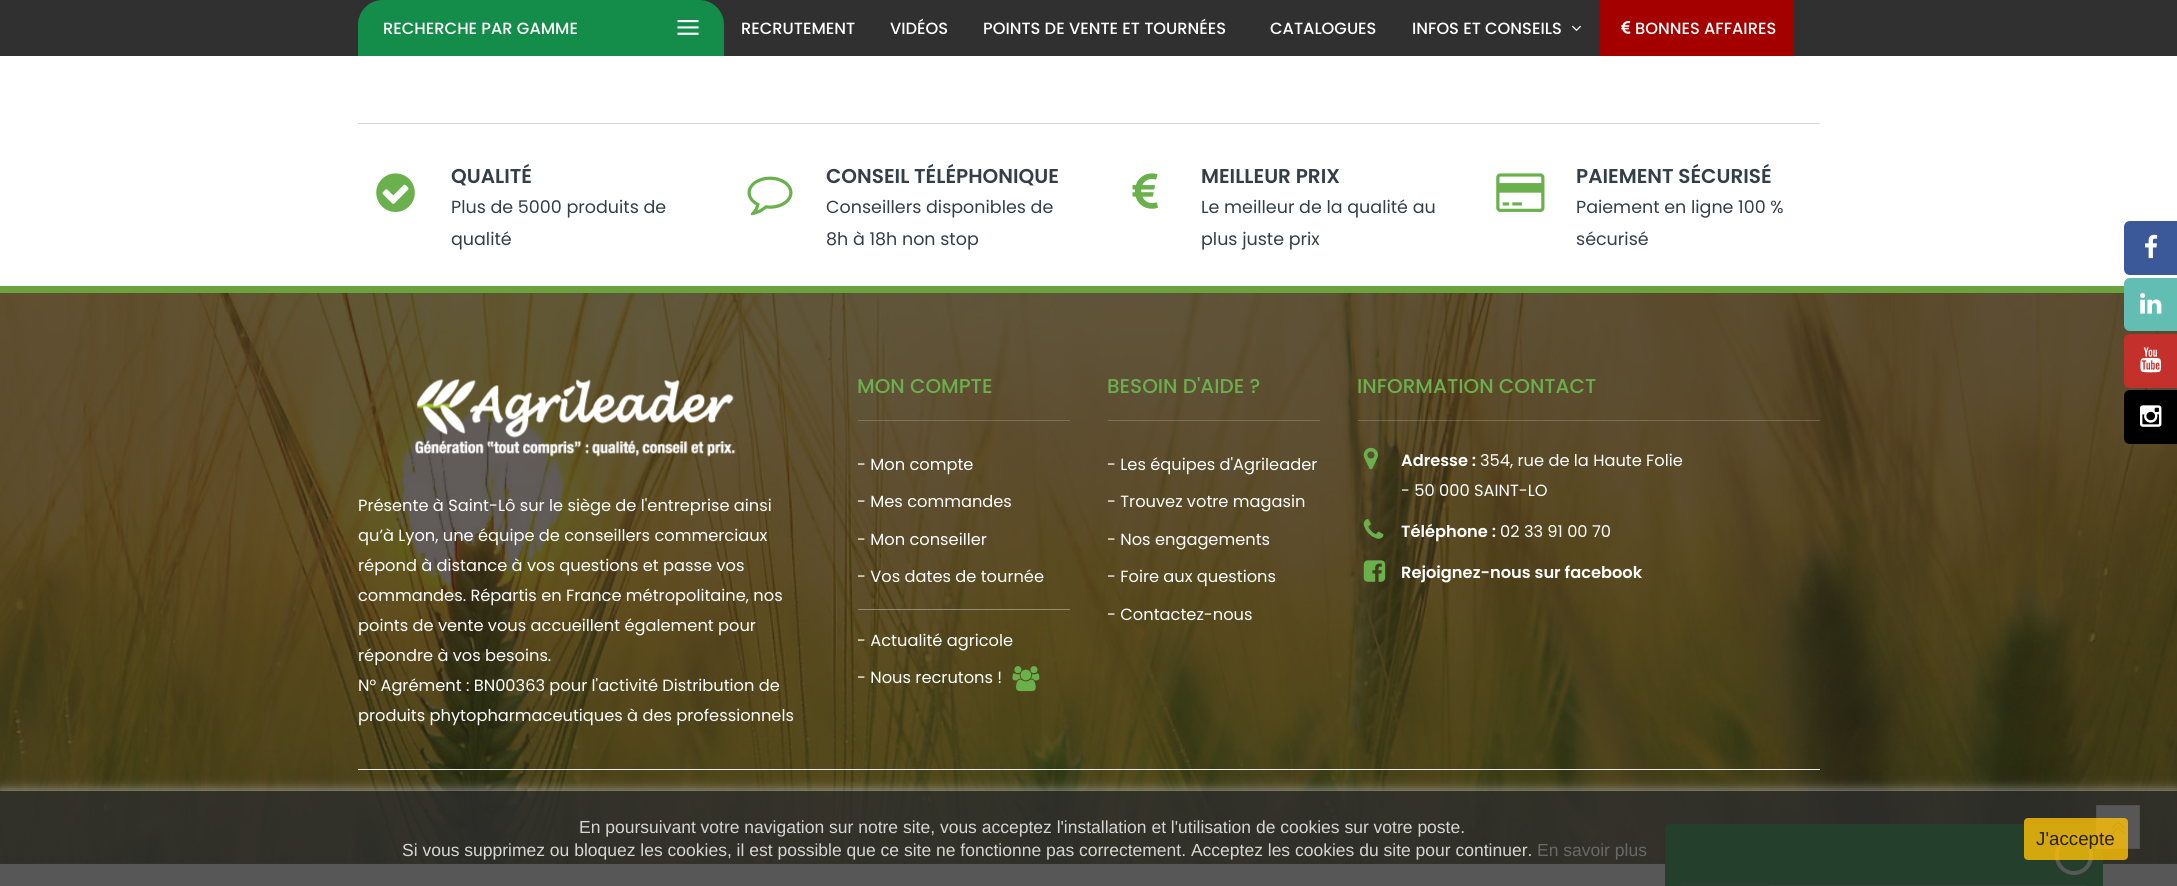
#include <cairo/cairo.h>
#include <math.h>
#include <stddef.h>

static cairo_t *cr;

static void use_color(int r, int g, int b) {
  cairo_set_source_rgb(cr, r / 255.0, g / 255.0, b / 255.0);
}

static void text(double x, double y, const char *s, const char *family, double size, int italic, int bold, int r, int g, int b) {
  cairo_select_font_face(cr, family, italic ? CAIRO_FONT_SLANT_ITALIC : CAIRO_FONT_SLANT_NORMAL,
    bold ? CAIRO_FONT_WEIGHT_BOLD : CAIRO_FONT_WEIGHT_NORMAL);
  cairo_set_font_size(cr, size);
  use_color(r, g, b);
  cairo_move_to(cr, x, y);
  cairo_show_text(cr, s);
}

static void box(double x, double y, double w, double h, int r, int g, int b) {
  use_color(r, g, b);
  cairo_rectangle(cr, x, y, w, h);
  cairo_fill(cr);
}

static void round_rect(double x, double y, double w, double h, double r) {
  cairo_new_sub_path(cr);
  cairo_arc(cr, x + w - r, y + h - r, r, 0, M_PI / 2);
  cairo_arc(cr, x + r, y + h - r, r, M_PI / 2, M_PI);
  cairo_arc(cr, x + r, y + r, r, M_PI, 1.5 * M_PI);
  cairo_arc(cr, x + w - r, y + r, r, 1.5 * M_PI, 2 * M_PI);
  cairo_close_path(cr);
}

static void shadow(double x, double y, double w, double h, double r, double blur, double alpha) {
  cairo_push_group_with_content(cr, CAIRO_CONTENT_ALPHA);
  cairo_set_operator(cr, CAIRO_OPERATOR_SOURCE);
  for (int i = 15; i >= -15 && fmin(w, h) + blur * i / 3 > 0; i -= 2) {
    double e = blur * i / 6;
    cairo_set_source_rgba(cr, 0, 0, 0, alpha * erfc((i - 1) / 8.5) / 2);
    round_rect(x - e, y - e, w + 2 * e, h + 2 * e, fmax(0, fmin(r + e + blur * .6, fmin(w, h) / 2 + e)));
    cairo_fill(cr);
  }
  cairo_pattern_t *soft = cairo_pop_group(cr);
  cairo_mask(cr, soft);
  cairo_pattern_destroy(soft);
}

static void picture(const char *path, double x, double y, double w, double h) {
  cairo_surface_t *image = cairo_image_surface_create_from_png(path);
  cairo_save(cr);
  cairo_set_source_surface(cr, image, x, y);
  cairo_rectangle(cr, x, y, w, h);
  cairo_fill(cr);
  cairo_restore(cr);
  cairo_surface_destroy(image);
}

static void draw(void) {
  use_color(255, 255, 255);
  cairo_paint(cr);
  box(0, 0, 2177, 56, 48, 48, 48);
  use_color(21, 141, 74);
  cairo_new_path(cr);
  cairo_move_to(cr, 383, 0);
  cairo_line_to(cr, 699, 0);
  cairo_curve_to(cr, 713, 0, 724, 11, 724, 25);
  cairo_line_to(cr, 724, 56);
  cairo_line_to(cr, 358, 56);
  cairo_line_to(cr, 358, 25);
  cairo_curve_to(cr, 358, 11, 369, 0, 383, 0);
  cairo_close_path(cr);
  cairo_fill(cr);
  picture("img_01.png", 677, 20, 22, 15);
  picture("img_02.png", 1572, 25, 9, 6);
  box(1599, 0, 195, 56, 165, 0, 0);
  picture("img_03.png", 1621, 21, 10, 13);
  box(358, 123, 1462, 1, 216, 216, 216);
  picture("img_04.png", 376, 173, 39, 39);
  picture("img_05.png", 747, 176, 46, 40);
  picture("img_06.png", 1132, 173, 26, 36);
  picture("img_07.png", 1496, 173, 49, 39);
  use_color(59, 89, 152);
  cairo_new_path(cr);
  cairo_move_to(cr, 2130, 221);
  cairo_line_to(cr, 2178, 221);
  cairo_line_to(cr, 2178, 275);
  cairo_line_to(cr, 2130, 275);
  cairo_curve_to(cr, 2126.5, 275, 2124, 272.5, 2124, 269);
  cairo_line_to(cr, 2124, 227);
  cairo_curve_to(cr, 2124, 223.5, 2126.5, 221, 2130, 221);
  cairo_close_path(cr);
  cairo_fill(cr);
  picture("img_08.png", 2145, 234, 13, 25);
  picture("img_12.png", 0, 293, 2177, 571);
  cairo_set_source_rgba(cr, 0.122, 0.086, 0.075, 0.7);
  cairo_rectangle(cr, 0, 293, 2177, 476);
  cairo_fill(cr);
  use_color(98, 189, 178);
  cairo_new_path(cr);
  cairo_move_to(cr, 2130, 278);
  cairo_line_to(cr, 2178, 278);
  cairo_line_to(cr, 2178, 331);
  cairo_line_to(cr, 2130, 331);
  cairo_curve_to(cr, 2126.5, 331, 2124, 328.5, 2124, 325);
  cairo_line_to(cr, 2124, 284);
  cairo_curve_to(cr, 2124, 280.5, 2126.5, 278, 2130, 278);
  cairo_close_path(cr);
  cairo_fill(cr);
  picture("img_09.png", 2140, 293, 22, 21);
  use_color(196, 48, 43);
  cairo_new_path(cr);
  cairo_move_to(cr, 2130, 334);
  cairo_line_to(cr, 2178, 334);
  cairo_line_to(cr, 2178, 388);
  cairo_line_to(cr, 2130, 388);
  cairo_curve_to(cr, 2126.5, 388, 2124, 385.5, 2124, 382);
  cairo_line_to(cr, 2124, 340);
  cairo_curve_to(cr, 2124, 336.5, 2126.5, 334, 2130, 334);
  cairo_close_path(cr);
  cairo_fill(cr);
  picture("img_10.png", 2140, 347, 22, 26);
  use_color(0, 0, 0);
  cairo_new_path(cr);
  cairo_move_to(cr, 2130, 390);
  cairo_line_to(cr, 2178, 390);
  cairo_line_to(cr, 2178, 444);
  cairo_line_to(cr, 2130, 444);
  cairo_curve_to(cr, 2126.5, 444, 2124, 441.5, 2124, 438);
  cairo_line_to(cr, 2124, 396);
  cairo_curve_to(cr, 2124, 392.5, 2126.5, 390, 2130, 390);
  cairo_close_path(cr);
  cairo_fill(cr);
  picture("img_11.png", 2140, 405, 22, 22);
  box(0, 286, 2124, 7, 106, 163, 62);
  picture("img_13.png", 415, 379, 321, 78);
  cairo_set_source_rgba(cr, 0.996, 0.996, 0.996, 0.2);
  cairo_rectangle(cr, 858, 420, 212, 1);
  cairo_fill(cr);
  cairo_set_source_rgba(cr, 0.816, 0.816, 0.816, 0.49);
  cairo_rectangle(cr, 858, 609, 212, 1);
  cairo_fill(cr);
  picture("img_14.png", 1012, 666, 28, 26);
  cairo_set_source_rgba(cr, 0.996, 0.996, 0.996, 0.2);
  cairo_rectangle(cr, 1108, 420, 212, 1);
  cairo_fill(cr);
  cairo_rectangle(cr, 1358, 420, 462, 1);
  cairo_fill(cr);
  picture("img_15.png", 1363, 447, 15, 23);
  picture("img_16.png", 1363, 519, 21, 20);
  picture("img_17.png", 1363, 560, 23, 22);
  cairo_set_source_rgba(cr, 0.122, 0.086, 0.075, 0.7);
  cairo_rectangle(cr, 0, 769, 2177, 95);
  cairo_fill(cr);
  box(358, 769, 1462, 1, 235, 235, 235);
  use_color(0, 139, 42);
  cairo_new_path(cr);
  cairo_move_to(cr, 1671, 824);
  cairo_line_to(cr, 2097, 824);
  cairo_curve_to(cr, 2100.5, 824, 2103, 826.5, 2103, 830);
  cairo_line_to(cr, 2103, 886);
  cairo_line_to(cr, 1665, 886);
  cairo_line_to(cr, 1665, 830);
  cairo_curve_to(cr, 1665, 826.5, 1667.5, 824, 1671, 824);
  cairo_close_path(cr);
  cairo_fill(cr);
  box(1769, 885, 317, 1, 51, 162, 84);
  round_rect(2057, 837, 34, 36, 17);
  use_color(255, 255, 255);
  cairo_set_line_width(cr, 4);
  cairo_stroke(cr);
  box(1681, 883, 88, 3, 13, 138, 59);
  use_color(255, 255, 255);
  cairo_rectangle(cr, 2096.5, 805.5, 43, 43);
  cairo_fill_preserve(cr);
  use_color(221, 221, 221);
  cairo_set_line_width(cr, 1);
  cairo_stroke(cr);
  picture("img_18.png", 2111, 820, 14, 15);
  cairo_save(cr);
  cairo_set_fill_rule(cr, CAIRO_FILL_RULE_EVEN_ODD);
  cairo_new_path(cr);
  cairo_move_to(cr, 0, 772);
  cairo_line_to(cr, 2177, 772);
  cairo_line_to(cr, 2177, 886);
  cairo_line_to(cr, 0, 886);
  cairo_close_path(cr);
  cairo_move_to(cr, 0, 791);
  cairo_line_to(cr, 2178, 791);
  cairo_line_to(cr, 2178, 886);
  cairo_line_to(cr, 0, 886);
  cairo_close_path(cr);
  cairo_clip(cr);
  use_color(194, 194, 194);
  shadow(0, 791, 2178, 95, 0, 6, 0.8);
  cairo_restore(cr);
  cairo_set_source_rgba(cr, 0.18, 0.18, 0.18, 0.8);
  cairo_rectangle(cr, 0, 791, 2177, 95);
  cairo_fill(cr);
  cairo_set_source_rgba(cr, 1, 0.757, 0.027, 0.8);
  round_rect(2024, 818, 104, 42, 4);
  cairo_fill(cr);
  text(383, 34, "RECHERCHE PAR GAMME", "Poppins Medium", 16.25, 0, 0, 255, 255, 255);
  text(741, 34, "RECRUTEMENT", "Poppins Medium", 16.25, 0, 0, 255, 255, 255);
  text(890, 34, "VIDÉOS", "Poppins Medium", 16.25, 0, 0, 255, 255, 255);
  text(983, 34, "POINTS DE VENTE ET TOURNÉES", "Poppins Medium", 16.25, 0, 0, 255, 255, 255);
  text(1270, 34, "CATALOGUES", "Poppins Medium", 16.25, 0, 0, 255, 255, 255);
  text(1412, 34, "INFOS ET CONSEILS", "Poppins Medium", 16.25, 0, 0, 255, 255, 255);
  text(1635, 34, "BONNES AFFAIRES", "Poppins Medium", 16.25, 0, 0, 255, 255, 255);
  text(451, 183, "QUALITÉ", "Poppins SemiBold", 20, 0, 0, 51, 62, 72);
  text(451, 213, "Plus de 5000 produits de", "Poppins", 17.5, 0, 0, 51, 62, 72);
  text(451, 245, "qualité", "Poppins", 17.5, 0, 0, 51, 62, 72);
  text(826, 183, "CONSEIL TÉLÉPHONIQUE", "Poppins SemiBold", 20, 0, 0, 51, 62, 72);
  text(826, 213, "Conseillers disponibles de", "Poppins", 17.5, 0, 0, 51, 62, 72);
  text(826, 245, "8h à 18h non stop", "Poppins", 17.5, 0, 0, 51, 62, 72);
  text(1201, 183, "MEILLEUR PRIX", "Poppins SemiBold", 20, 0, 0, 51, 62, 72);
  text(1201, 213, "Le meilleur de la qualité au", "Poppins", 17.5, 0, 0, 51, 62, 72);
  text(1201, 245, "plus juste prix", "Poppins", 17.5, 0, 0, 51, 62, 72);
  text(1576, 183, "PAIEMENT SÉCURISÉ", "Poppins SemiBold", 20, 0, 0, 51, 62, 72);
  text(1576, 213, "Paiement en ligne 100 %", "Poppins", 17.5, 0, 0, 51, 62, 72);
  text(1576, 245, "sécurisé", "Poppins", 17.5, 0, 0, 51, 62, 72);
  text(358, 511, "Présente à Saint-Lô sur le siège de l'entreprise ainsi", "Poppins", 16.25, 0, 0, 255, 255, 255);
  text(358, 541, "qu’à Lyon, une équipe de conseillers commerciaux", "Poppins", 16.25, 0, 0, 255, 255, 255);
  text(358, 571, "répond à distance à vos questions et passe vos", "Poppins", 16.25, 0, 0, 255, 255, 255);
  text(358, 601, "commandes. Répartis en France métropolitaine, nos", "Poppins", 16.25, 0, 0, 255, 255, 255);
  text(358, 631, "points de vente vous accueillent également pour", "Poppins", 16.25, 0, 0, 255, 255, 255);
  text(358, 661, "répondre à vos besoins.", "Poppins", 16.25, 0, 0, 255, 255, 255);
  text(358, 691, "N° Agrément : BN00363 pour l'activité Distribution de", "Poppins", 16.25, 0, 0, 255, 255, 255);
  text(358, 721, "produits phytopharmaceutiques à des professionnels", "Poppins", 16.25, 0, 0, 255, 255, 255);
  text(857, 393, "MON COMPTE", "Poppins Medium", 20, 0, 0, 106, 176, 76);
  text(857, 470, "- Mon compte", "Poppins", 16.25, 0, 0, 255, 255, 255);
  text(857, 507, "- Mes commandes", "Poppins", 16.25, 0, 0, 255, 255, 255);
  text(857, 545, "- Mon conseiller", "Poppins", 16.25, 0, 0, 255, 255, 255);
  text(857, 582, "- Vos dates de tournée", "Poppins", 16.25, 0, 0, 255, 255, 255);
  text(857, 646, "- Actualité agricole", "Poppins", 16.25, 0, 0, 255, 255, 255);
  text(857, 683, "- Nous recrutons !", "Poppins", 16.25, 0, 0, 255, 255, 255);
  text(1107, 393, "BESOIN D'AIDE ?", "Poppins Medium", 20, 0, 0, 106, 176, 76);
  text(1107, 470, "- Les équipes d'Agrileader", "Poppins", 16.25, 0, 0, 255, 255, 255);
  text(1107, 507, "- Trouvez votre magasin", "Poppins", 16.25, 0, 0, 255, 255, 255);
  text(1107, 545, "- Nos engagements", "Poppins", 16.25, 0, 0, 255, 255, 255);
  text(1107, 582, "- Foire aux questions", "Poppins", 16.25, 0, 0, 255, 255, 255);
  text(1107, 620, "- Contactez-nous", "Poppins", 16.25, 0, 0, 255, 255, 255);
  text(1357, 393, "INFORMATION CONTACT", "Poppins Medium", 20, 0, 0, 106, 176, 76);
  text(1401, 466, "Adresse :", "Poppins SemiBold", 16.25, 0, 0, 255, 255, 255);
  text(1480, 466, "354, rue de la Haute Folie", "Poppins", 16.25, 0, 0, 255, 255, 255);
  text(1401, 496, "- 50 000 SAINT-LO", "Poppins", 16.25, 0, 0, 255, 255, 255);
  text(1401, 537, "Téléphone :", "Poppins SemiBold", 16.25, 0, 0, 255, 255, 255);
  text(1500, 537, "02 33 91 00 70", "Poppins", 16.25, 0, 0, 255, 255, 255);
  text(1401, 578, "Rejoignez-nous sur facebook", "Poppins SemiBold", 16.25, 0, 0, 255, 255, 255);
  text(579, 833, "En poursuivant votre navigation sur notre site, vous acceptez l'installation et l'utilisation de cookies sur votre poste.", "Liberation Sans", 17.5, 0, 0, 214, 214, 212);
  text(402, 856, "Si vous supprimez ou bloquez les cookies, il est possible que ce site ne fonctionne pas correctement. Acceptez les cookies du site pour continuer.", "Liberation Sans", 17.5, 0, 0, 214, 214, 212);
  text(1537, 856, "En savoir plus", "Liberation Sans", 17.5, 0, 0, 105, 105, 103);
  text(2036, 845, "J'accepte", "Liberation Sans", 18.75, 0, 0, 43, 34, 4);
}

int main(void) {
  cairo_surface_t *surface = cairo_image_surface_create(CAIRO_FORMAT_RGB24, 2177, 886);
  cr = cairo_create(surface);
  cairo_font_options_t *options = cairo_font_options_create();
  cairo_font_options_set_hint_metrics(options, CAIRO_HINT_METRICS_OFF);
  cairo_font_options_set_hint_style(options, CAIRO_HINT_STYLE_NONE);
  cairo_set_font_options(cr, options);
  cairo_set_miter_limit(cr, 4);
  draw();
  cairo_surface_write_to_png(surface, "out.png");
  cairo_font_options_destroy(options);
  cairo_destroy(cr);
  cairo_surface_destroy(surface);
  return 0;
}
